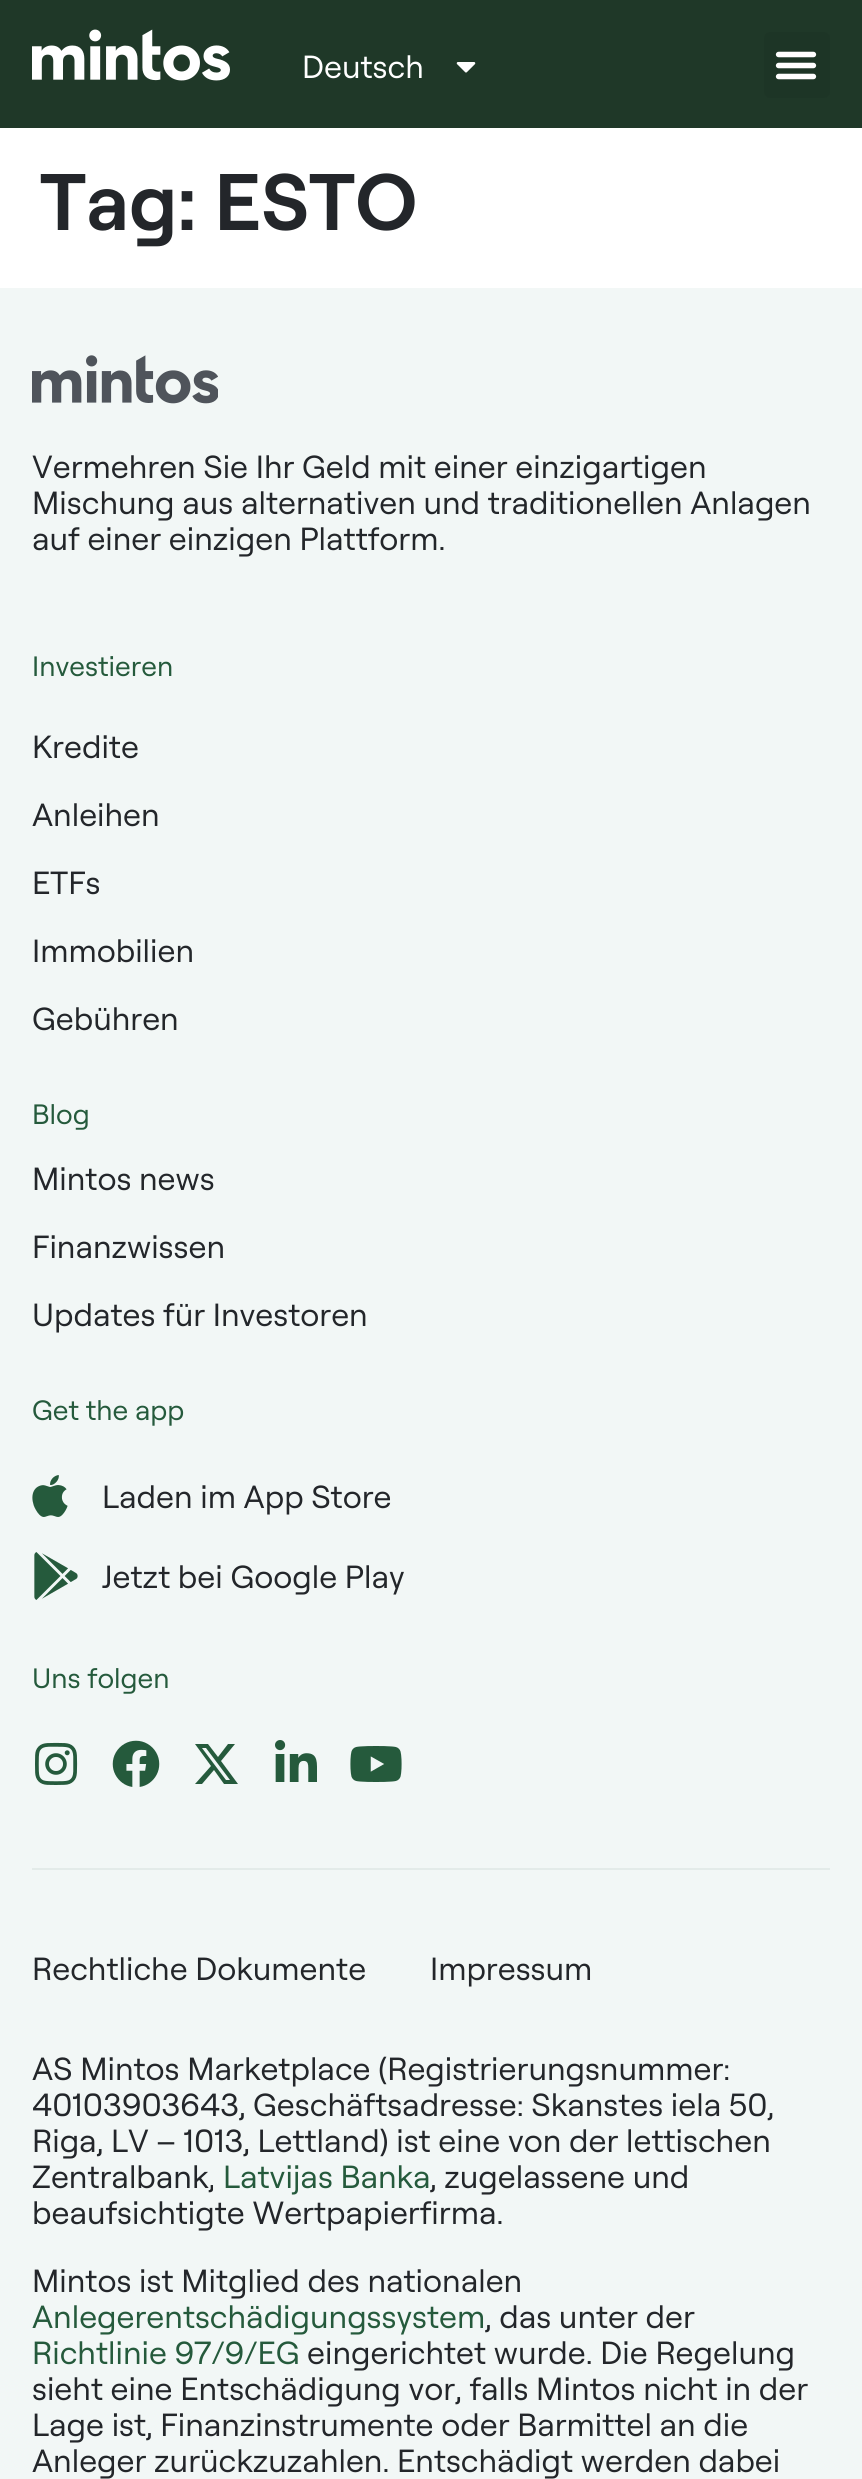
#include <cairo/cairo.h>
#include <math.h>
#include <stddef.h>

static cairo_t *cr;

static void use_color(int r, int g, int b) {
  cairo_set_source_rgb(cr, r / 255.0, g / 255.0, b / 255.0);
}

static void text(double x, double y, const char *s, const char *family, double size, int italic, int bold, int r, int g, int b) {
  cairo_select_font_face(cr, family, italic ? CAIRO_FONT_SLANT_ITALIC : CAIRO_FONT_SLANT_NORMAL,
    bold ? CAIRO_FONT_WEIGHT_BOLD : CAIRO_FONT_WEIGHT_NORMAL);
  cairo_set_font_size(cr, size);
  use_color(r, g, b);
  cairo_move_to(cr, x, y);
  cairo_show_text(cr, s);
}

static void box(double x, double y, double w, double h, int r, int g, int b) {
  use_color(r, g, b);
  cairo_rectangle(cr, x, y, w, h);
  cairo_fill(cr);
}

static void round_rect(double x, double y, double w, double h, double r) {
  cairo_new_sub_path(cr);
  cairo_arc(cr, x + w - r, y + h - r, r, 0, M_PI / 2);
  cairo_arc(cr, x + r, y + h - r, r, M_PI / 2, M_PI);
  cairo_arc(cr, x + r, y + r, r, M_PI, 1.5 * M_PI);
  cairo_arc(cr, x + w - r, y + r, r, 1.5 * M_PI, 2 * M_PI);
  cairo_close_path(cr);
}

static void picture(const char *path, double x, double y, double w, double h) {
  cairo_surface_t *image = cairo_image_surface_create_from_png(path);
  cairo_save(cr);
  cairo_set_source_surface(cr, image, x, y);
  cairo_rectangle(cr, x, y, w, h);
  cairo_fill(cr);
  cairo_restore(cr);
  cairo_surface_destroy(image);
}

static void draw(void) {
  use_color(255, 255, 255);
  cairo_paint(cr);
  box(0, 0, 862, 128, 31, 56, 40);
  picture("img_01.png", 32, 29, 198, 52);
  picture("img_02.png", 456, 62, 20, 11);
  use_color(29, 53, 38);
  round_rect(764, 32, 66, 66, 6);
  cairo_fill(cr);
  picture("img_03.png", 775, 51, 42, 29);
  box(0, 288, 862, 2191, 242, 247, 246);
  picture("img_04.png", 32, 355, 186, 49);
  picture("img_05.png", 32, 1475, 36, 42);
  picture("img_06.png", 34, 1552, 44, 48);
  picture("img_07.png", 35, 1742, 43, 43);
  picture("img_08.png", 112, 1740, 48, 47);
  use_color(37, 90, 60);
  cairo_new_path(cr);
  cairo_move_to(cr, 228, 1744);
  cairo_line_to(cr, 235, 1744);
  cairo_line_to(cr, 221, 1761);
  cairo_line_to(cr, 238, 1784);
  cairo_line_to(cr, 224, 1784);
  cairo_line_to(cr, 214, 1770);
  cairo_line_to(cr, 202, 1784);
  cairo_line_to(cr, 195, 1784);
  cairo_line_to(cr, 211, 1766);
  cairo_line_to(cr, 195, 1744);
  cairo_line_to(cr, 208, 1744);
  cairo_line_to(cr, 218, 1757);
  cairo_close_path(cr);
  cairo_move_to(cr, 226, 1780);
  cairo_line_to(cr, 230, 1780);
  cairo_line_to(cr, 206, 1748);
  cairo_line_to(cr, 202, 1748);
  cairo_close_path(cr);
  cairo_fill(cr);
  picture("img_09.png", 275, 1740, 42, 42);
  picture("img_10.png", 350, 1746, 52, 36);
  box(32, 1868, 798, 2, 227, 235, 233);
  text(302, 78, "Deutsch", "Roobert", 32, 0, 0, 255, 255, 255);
  text(40, 230, "Tag: ESTO", "Roobert SemiBold", 80, 0, 0, 35, 38, 42);
  text(32, 478, "Vermehren Sie Ihr Geld mit einer einzigartigen", "Roobert", 32, 0, 0, 35, 38, 42);
  text(32, 514, "Mischung aus alternativen und traditionellen Anlagen", "Roobert", 32, 0, 0, 35, 38, 42);
  text(32, 550, "auf einer einzigen Plattform.", "Roobert", 32, 0, 0, 35, 38, 42);
  text(32, 676, "Investieren", "Roobert", 28, 0, 0, 37, 90, 60);
  text(32, 758, "Kredite", "Roobert", 32, 0, 0, 35, 38, 42);
  text(32, 826, "Anleihen", "Roobert", 32, 0, 0, 35, 38, 42);
  text(32, 894, "ETFs", "Roobert", 32, 0, 0, 35, 38, 42);
  text(32, 962, "Immobilien", "Roobert", 32, 0, 0, 35, 38, 42);
  text(32, 1030, "Gebühren", "Roobert", 32, 0, 0, 35, 38, 42);
  text(32, 1124, "Blog", "Roobert", 28, 0, 0, 37, 90, 60);
  text(32, 1190, "Mintos news", "Roobert", 32, 0, 0, 35, 38, 42);
  text(32, 1258, "Finanzwissen", "Roobert", 32, 0, 0, 35, 38, 42);
  text(32, 1326, "Updates für Investoren", "Roobert", 32, 0, 0, 35, 38, 42);
  text(32, 1420, "Get the app", "Roobert", 28, 0, 0, 37, 90, 60);
  text(102, 1508, "Laden im App Store", "Roobert", 32, 0, 0, 35, 38, 42);
  text(102, 1588, "Jetzt bei Google Play", "Roobert", 32, 0, 0, 35, 38, 42);
  text(32, 1688, "Uns folgen", "Roobert", 28, 0, 0, 37, 90, 60);
  text(32, 1980, "Rechtliche Dokumente", "Roobert", 32, 0, 0, 35, 38, 42);
  text(430, 1980, "Impressum", "Roobert", 32, 0, 0, 35, 38, 42);
  text(32, 2080, "AS Mintos Marketplace (Registrierungsnummer:", "Roobert", 32, 0, 0, 35, 38, 42);
  text(32, 2116, "40103903643, Geschäftsadresse: Skanstes iela 50,", "Roobert", 32, 0, 0, 35, 38, 42);
  text(32, 2152, "Riga, LV – 1013, Lettland) ist eine von der lettischen", "Roobert", 32, 0, 0, 35, 38, 42);
  text(32, 2188, "Zentralbank,", "Roobert", 32, 0, 0, 35, 38, 42);
  text(223, 2188, "Latvijas Banka", "Roobert", 32, 0, 0, 37, 90, 60);
  text(430, 2188, ", zugelassene und", "Roobert", 32, 0, 0, 35, 38, 42);
  text(32, 2224, "beaufsichtigte Wertpapierfirma.", "Roobert", 32, 0, 0, 35, 38, 42);
  text(32, 2292, "Mintos ist Mitglied des nationalen", "Roobert", 32, 0, 0, 35, 38, 42);
  text(32, 2328, "Anlegerentschädigungssystem", "Roobert", 32, 0, 0, 37, 90, 60);
  text(485, 2328, ", das unter der", "Roobert", 32, 0, 0, 35, 38, 42);
  text(32, 2364, "Richtlinie 97/9/EG", "Roobert", 32, 0, 0, 37, 90, 60);
  text(307, 2364, "eingerichtet wurde. Die Regelung", "Roobert", 32, 0, 0, 35, 38, 42);
  text(32, 2400, "sieht eine Entschädigung vor, falls Mintos nicht in der", "Roobert", 32, 0, 0, 35, 38, 42);
  text(32, 2436, "Lage ist, Finanzinstrumente oder Barmittel an die", "Roobert", 32, 0, 0, 35, 38, 42);
  text(32, 2472, "Anleger zurückzuzahlen. Entschädigt werden dabei", "Roobert", 32, 0, 0, 35, 38, 42);
}

int main(void) {
  cairo_surface_t *surface = cairo_image_surface_create(CAIRO_FORMAT_RGB24, 862, 2479);
  cr = cairo_create(surface);
  cairo_font_options_t *options = cairo_font_options_create();
  cairo_font_options_set_hint_metrics(options, CAIRO_HINT_METRICS_OFF);
  cairo_font_options_set_hint_style(options, CAIRO_HINT_STYLE_NONE);
  cairo_set_font_options(cr, options);
  cairo_set_miter_limit(cr, 4);
  draw();
  cairo_surface_write_to_png(surface, "out.png");
  cairo_font_options_destroy(options);
  cairo_destroy(cr);
  cairo_surface_destroy(surface);
  return 0;
}
